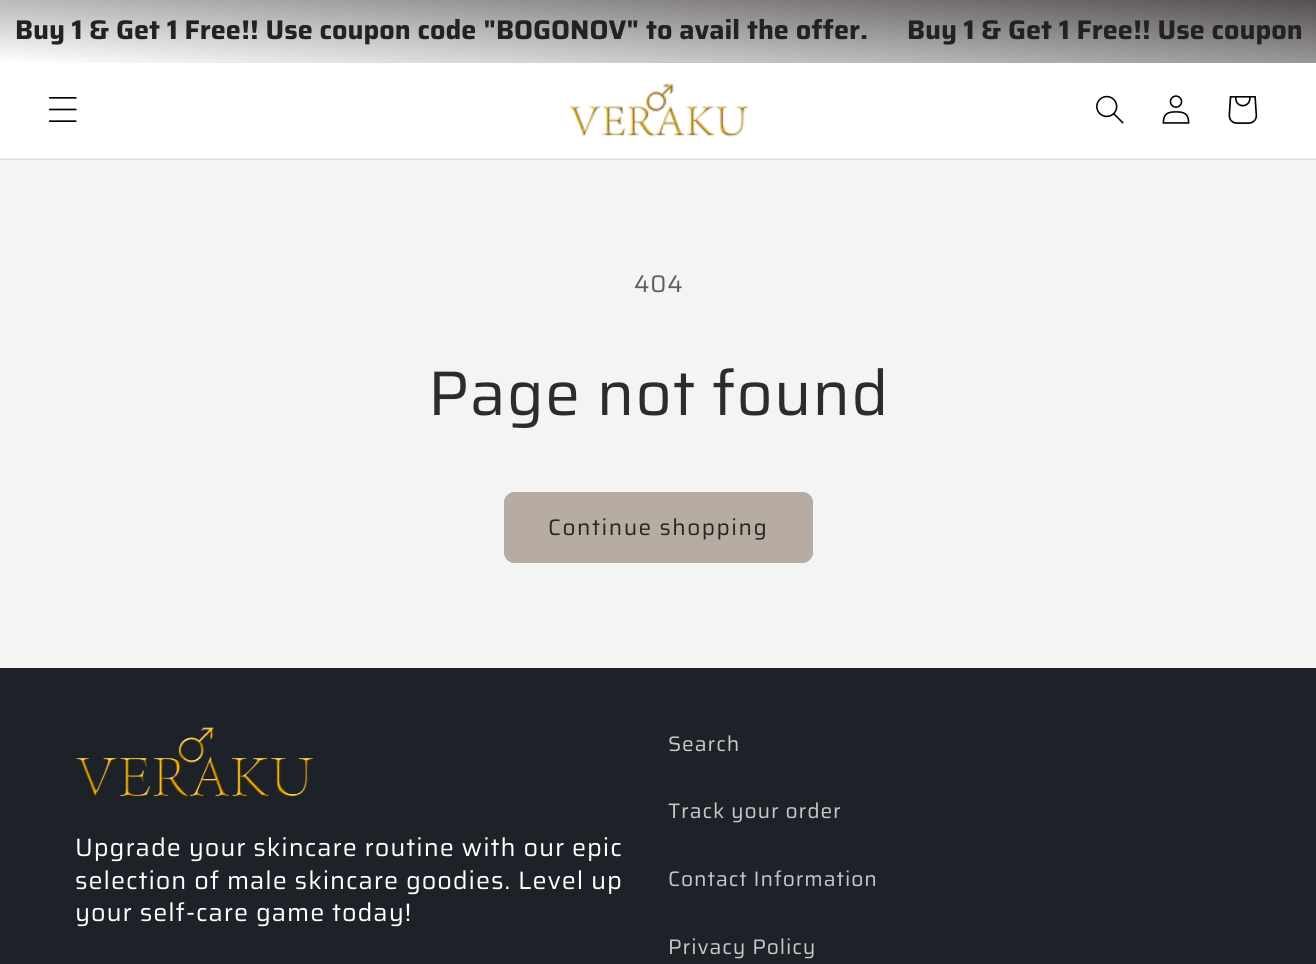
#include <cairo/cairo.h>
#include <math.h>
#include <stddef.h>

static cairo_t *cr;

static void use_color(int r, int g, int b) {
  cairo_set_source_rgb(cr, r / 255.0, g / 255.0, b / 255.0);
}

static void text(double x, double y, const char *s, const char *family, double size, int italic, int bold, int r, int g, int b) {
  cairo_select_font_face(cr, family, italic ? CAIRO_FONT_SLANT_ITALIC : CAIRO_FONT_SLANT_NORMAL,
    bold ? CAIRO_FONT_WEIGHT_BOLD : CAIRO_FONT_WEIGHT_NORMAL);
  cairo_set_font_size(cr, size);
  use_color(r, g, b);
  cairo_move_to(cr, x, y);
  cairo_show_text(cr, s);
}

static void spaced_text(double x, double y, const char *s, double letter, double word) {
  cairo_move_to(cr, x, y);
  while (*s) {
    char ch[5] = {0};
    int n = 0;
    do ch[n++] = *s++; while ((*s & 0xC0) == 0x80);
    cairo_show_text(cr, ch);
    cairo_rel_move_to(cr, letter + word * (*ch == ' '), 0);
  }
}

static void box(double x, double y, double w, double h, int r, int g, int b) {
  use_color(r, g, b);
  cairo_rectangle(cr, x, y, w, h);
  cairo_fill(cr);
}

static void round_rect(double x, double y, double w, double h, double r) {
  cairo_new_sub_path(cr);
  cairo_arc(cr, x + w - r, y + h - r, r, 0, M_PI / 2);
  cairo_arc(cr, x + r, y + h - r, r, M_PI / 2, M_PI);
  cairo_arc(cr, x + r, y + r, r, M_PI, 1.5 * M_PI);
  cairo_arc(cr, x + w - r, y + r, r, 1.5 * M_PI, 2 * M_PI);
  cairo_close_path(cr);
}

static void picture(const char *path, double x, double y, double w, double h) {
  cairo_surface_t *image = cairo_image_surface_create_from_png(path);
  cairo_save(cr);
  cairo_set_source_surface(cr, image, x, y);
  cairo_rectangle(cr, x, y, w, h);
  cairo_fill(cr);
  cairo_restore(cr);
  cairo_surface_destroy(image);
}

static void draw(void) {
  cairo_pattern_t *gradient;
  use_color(244, 244, 244);
  cairo_paint(cr);
  box(0, 159, 1316, 1, 224, 224, 224);
  gradient = cairo_pattern_create_linear(664, -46, 653, 109);
  cairo_pattern_add_color_stop_rgba(gradient, 0, 0.337, 0.318, 0.318, 1);
  cairo_pattern_add_color_stop_rgba(gradient, 1, 1, 1, 1, 1);
  cairo_set_source(cr, gradient);
  cairo_pattern_destroy(gradient);
  cairo_rectangle(cr, 0, 0, 1316, 63);
  cairo_fill(cr);
  box(0, 63, 1316, 95, 255, 255, 255);
  box(0, 158, 1316, 1, 235, 235, 235);
  picture("img_01.png", 48, 97, 29, 25);
  picture("img_02.png", 568, 83, 181, 54);
  picture("img_03.png", 1096, 95, 28, 29);
  picture("img_04.png", 1162, 95, 28, 29);
  picture("img_05.png", 1228, 96, 30, 28);
  use_color(183, 172, 162);
  round_rect(504, 492, 309, 71, 11);
  cairo_fill(cr);
  round_rect(505, 493, 307, 69, 10);
  cairo_stroke(cr);
  box(0, 668, 1316, 296, 28, 34, 40);
  picture("img_06.png", 76, 727, 238, 70);
  text(15, 39, "Buy 1 & Get 1 Free!! Use coupon code \"BOGONOV\" to avail the offer.", "Saira", 27, 0, 1, 32, 34, 35);
  text(907, 39, "Buy 1 & Get 1 Free!! Use coupon", "Saira", 27, 0, 1, 32, 34, 35);
  cairo_select_font_face(cr, "Saira", CAIRO_FONT_SLANT_NORMAL, CAIRO_FONT_WEIGHT_NORMAL);
  cairo_set_font_size(cr, 24);
  use_color(93, 94, 95);
  spaced_text(634, 292, "404", 0.9, 0);
  cairo_set_font_size(cr, 63);
  use_color(43, 44, 45);
  spaced_text(428, 415, "Page not found", 0.95, 0);
  cairo_set_font_size(cr, 22.5);
  use_color(38, 38, 38);
  spaced_text(548, 535, "Continue shopping", 1.5, 0);
  cairo_set_font_size(cr, 25.2);
  use_color(255, 255, 255);
  spaced_text(75, 856, "Upgrade your skincare routine with our epic", 0.95, 0);
  spaced_text(75, 889, "selection of male skincare goodies. Level up", 0.95, 0);
  spaced_text(75, 921, "your self-care game today!", 0.95, 0);
  cairo_set_font_size(cr, 21);
  use_color(198, 200, 201);
  spaced_text(668, 751, "Search", 0.9, 0);
  spaced_text(668, 818, "Track your order", 0.9, 0);
  spaced_text(668, 886, "Contact Information", 0.9, 0);
  spaced_text(668, 954, "Privacy Policy", 0.9, 0);
}

int main(void) {
  cairo_surface_t *surface = cairo_image_surface_create(CAIRO_FORMAT_RGB24, 1316, 964);
  cr = cairo_create(surface);
  cairo_font_options_t *options = cairo_font_options_create();
  cairo_font_options_set_hint_metrics(options, CAIRO_HINT_METRICS_OFF);
  cairo_font_options_set_hint_style(options, CAIRO_HINT_STYLE_NONE);
  cairo_set_font_options(cr, options);
  cairo_set_miter_limit(cr, 4);
  draw();
  cairo_surface_write_to_png(surface, "out.png");
  cairo_font_options_destroy(options);
  cairo_destroy(cr);
  cairo_surface_destroy(surface);
  return 0;
}
